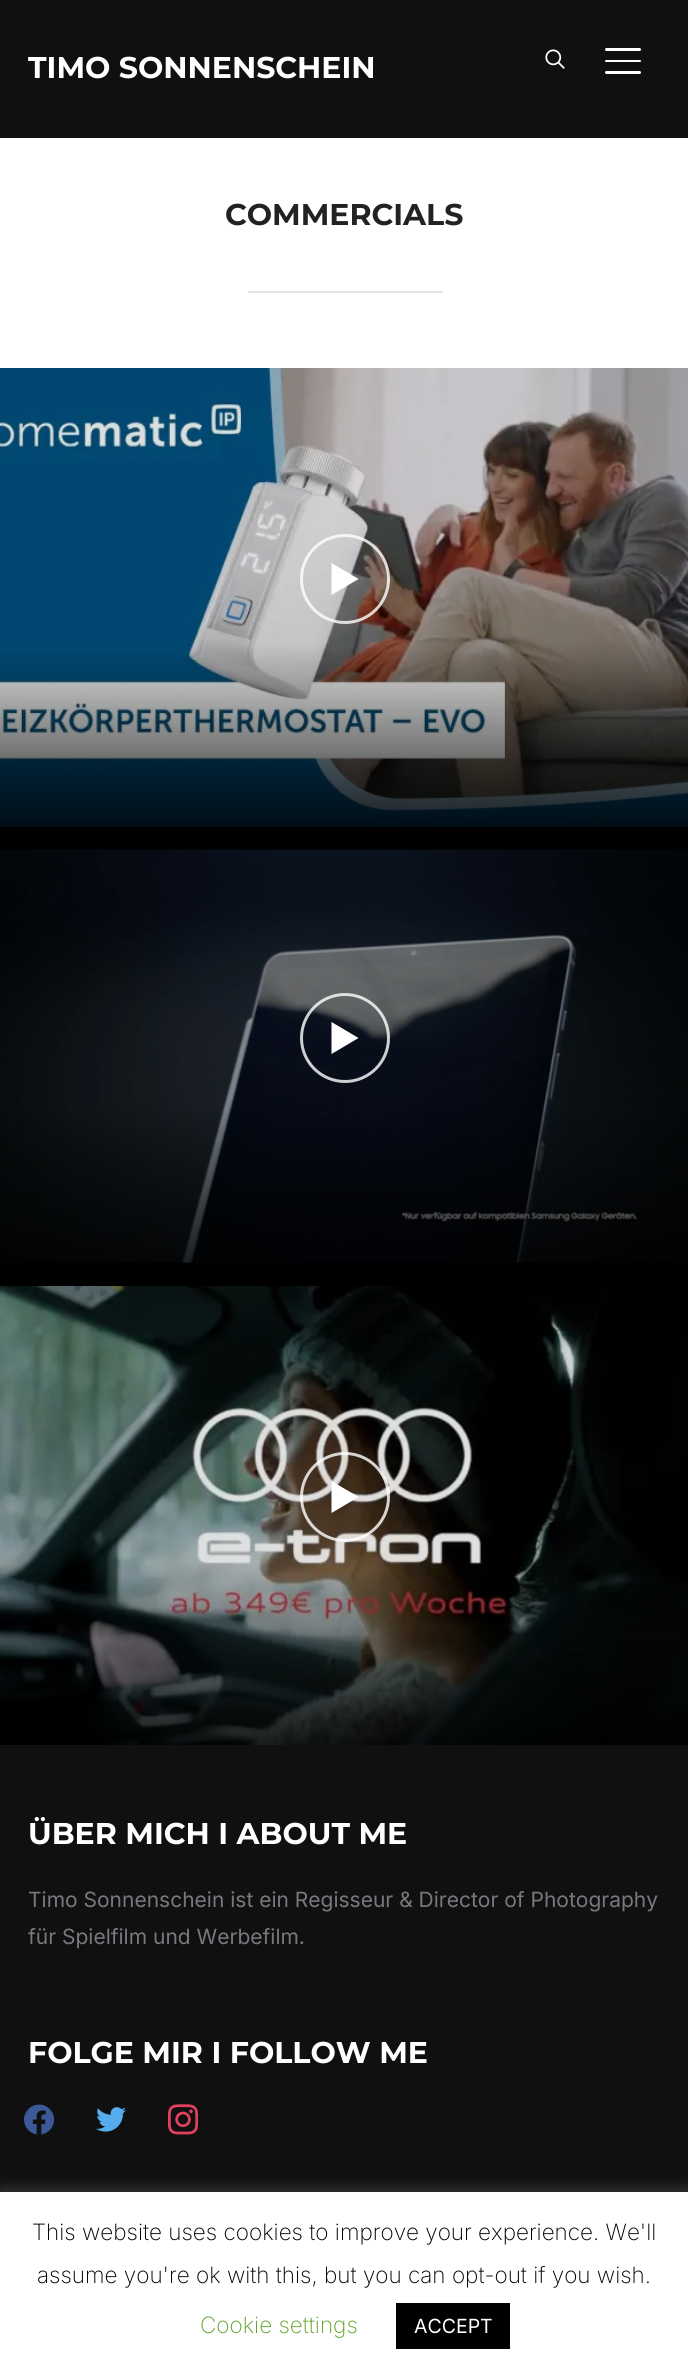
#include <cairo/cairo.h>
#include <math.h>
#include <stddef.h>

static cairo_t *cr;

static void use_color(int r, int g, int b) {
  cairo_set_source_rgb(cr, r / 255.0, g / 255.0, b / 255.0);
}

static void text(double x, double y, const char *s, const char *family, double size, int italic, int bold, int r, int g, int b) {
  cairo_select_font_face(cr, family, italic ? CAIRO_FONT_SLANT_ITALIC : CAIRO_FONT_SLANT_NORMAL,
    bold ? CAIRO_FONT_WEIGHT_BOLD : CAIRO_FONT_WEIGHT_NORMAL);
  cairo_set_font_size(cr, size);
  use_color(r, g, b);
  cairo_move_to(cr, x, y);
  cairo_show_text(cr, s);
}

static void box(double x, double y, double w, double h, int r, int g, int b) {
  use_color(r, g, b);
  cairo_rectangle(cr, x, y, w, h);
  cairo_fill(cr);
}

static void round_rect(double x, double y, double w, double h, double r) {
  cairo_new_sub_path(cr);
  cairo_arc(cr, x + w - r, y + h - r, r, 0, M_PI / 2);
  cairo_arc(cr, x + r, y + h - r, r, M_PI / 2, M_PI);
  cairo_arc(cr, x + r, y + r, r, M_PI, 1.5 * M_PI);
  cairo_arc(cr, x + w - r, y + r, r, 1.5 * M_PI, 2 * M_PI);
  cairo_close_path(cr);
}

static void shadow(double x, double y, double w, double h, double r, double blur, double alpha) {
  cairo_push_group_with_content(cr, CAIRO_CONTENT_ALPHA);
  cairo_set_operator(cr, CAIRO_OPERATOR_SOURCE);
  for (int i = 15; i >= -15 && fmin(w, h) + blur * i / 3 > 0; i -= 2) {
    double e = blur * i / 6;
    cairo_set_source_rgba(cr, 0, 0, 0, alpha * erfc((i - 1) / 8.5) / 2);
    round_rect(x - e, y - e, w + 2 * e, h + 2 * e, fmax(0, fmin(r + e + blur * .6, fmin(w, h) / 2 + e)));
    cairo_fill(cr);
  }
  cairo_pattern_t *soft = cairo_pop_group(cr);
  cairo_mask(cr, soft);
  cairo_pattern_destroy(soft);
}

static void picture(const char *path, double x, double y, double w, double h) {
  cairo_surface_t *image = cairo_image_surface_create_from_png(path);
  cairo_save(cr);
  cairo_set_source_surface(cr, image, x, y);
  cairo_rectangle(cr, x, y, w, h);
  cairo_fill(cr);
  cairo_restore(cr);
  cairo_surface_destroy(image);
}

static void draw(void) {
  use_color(255, 255, 255);
  cairo_paint(cr);
  box(0, 0, 688, 138, 16, 16, 16);
  picture("img_01.png", 545, 49, 20, 20);
  use_color(255, 255, 255);
  round_rect(605, 48, 36, 3, 1.5);
  cairo_fill(cr);
  round_rect(605, 60, 36, 2, 1);
  cairo_fill(cr);
  round_rect(605, 71, 36, 3, 1.5);
  cairo_fill(cr);
  box(248, 291, 195, 2, 230, 230, 230);
  picture("img_02.png", 0, 368, 688, 459);
  use_color(255, 255, 255);
  cairo_new_path(cr);
  cairo_move_to(cr, 331.5, 563);
  cairo_line_to(cr, 358.5, 579);
  cairo_line_to(cr, 331.5, 595);
  cairo_close_path(cr);
  cairo_fill(cr);
  cairo_arc(cr, 345, 579, 43.5, 0, 2 * M_PI);
  cairo_set_source_rgba(cr, 1, 1, 1, 0.8);
  cairo_set_line_width(cr, 3);
  cairo_stroke(cr);
  picture("img_03.png", 0, 827, 688, 459);
  use_color(255, 255, 255);
  cairo_new_path(cr);
  cairo_move_to(cr, 331.5, 1022);
  cairo_line_to(cr, 358.5, 1038);
  cairo_line_to(cr, 331.5, 1054);
  cairo_close_path(cr);
  cairo_fill(cr);
  cairo_arc(cr, 345, 1038, 43.5, 0, 2 * M_PI);
  cairo_set_source_rgba(cr, 1, 1, 1, 0.8);
  cairo_stroke(cr);
  picture("img_04.png", 0, 1286, 688, 459);
  use_color(255, 255, 255);
  cairo_new_path(cr);
  cairo_move_to(cr, 331.5, 1481);
  cairo_line_to(cr, 358.5, 1497);
  cairo_line_to(cr, 331.5, 1513);
  cairo_close_path(cr);
  cairo_fill(cr);
  cairo_arc(cr, 345, 1497, 43.5, 0, 2 * M_PI);
  cairo_set_source_rgba(cr, 1, 1, 1, 0.8);
  cairo_stroke(cr);
  box(0, 1745, 688, 447, 16, 16, 16);
  picture("img_05.png", 24, 2104, 30, 31);
  picture("img_06.png", 96, 2107, 30, 25);
  picture("img_07.png", 168, 2104, 31, 31);
  use_color(172, 171, 171);
  shadow(0, 2190, 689, 183, 0, 7.5, 0.3);
  box(0, 2192, 688, 182, 255, 255, 255);
  box(396, 2303, 114, 46, 0, 0, 0);
  text(28, 78, "TIMO SONNENSCHEIN", "Montserrat", 30, 0, 1, 255, 255, 255);
  text(225, 225, "COMMERCIALS", "Montserrat", 30, 0, 1, 34, 34, 34);
  text(28, 1844, "ÜBER MICH I ABOUT ME", "Montserrat", 30, 0, 1, 255, 255, 255);
  text(28, 1907, "Timo Sonnenschein ist ein Regisseur & Director of Photography", "Inter", 21, 0, 0, 120, 120, 127);
  text(28, 1944, "für Spielfilm und Werbefilm.", "Inter", 21, 0, 0, 120, 120, 127);
  text(28, 2063, "FOLGE MIR I FOLLOW ME", "Montserrat", 30, 0, 1, 255, 255, 255);
  text(32, 2240, "This website uses cookies to improve your experience. We'll", "Inter ExtraLight", 22.5, 0, 0, 0, 0, 0);
  text(37, 2283, "assume you're ok with this, but you can opt-out if you wish.", "Inter ExtraLight", 22.5, 0, 0, 0, 0, 0);
  text(200, 2333, "Cookie settings", "Inter ExtraLight", 22.5, 0, 0, 98, 163, 41);
  text(414, 2333, "ACCEPT", "Inter", 19.5, 0, 0, 255, 255, 255);
}

int main(void) {
  cairo_surface_t *surface = cairo_image_surface_create(CAIRO_FORMAT_RGB24, 688, 2374);
  cr = cairo_create(surface);
  cairo_font_options_t *options = cairo_font_options_create();
  cairo_font_options_set_hint_metrics(options, CAIRO_HINT_METRICS_OFF);
  cairo_font_options_set_hint_style(options, CAIRO_HINT_STYLE_NONE);
  cairo_set_font_options(cr, options);
  cairo_set_miter_limit(cr, 4);
  draw();
  cairo_surface_write_to_png(surface, "out.png");
  cairo_font_options_destroy(options);
  cairo_destroy(cr);
  cairo_surface_destroy(surface);
  return 0;
}
